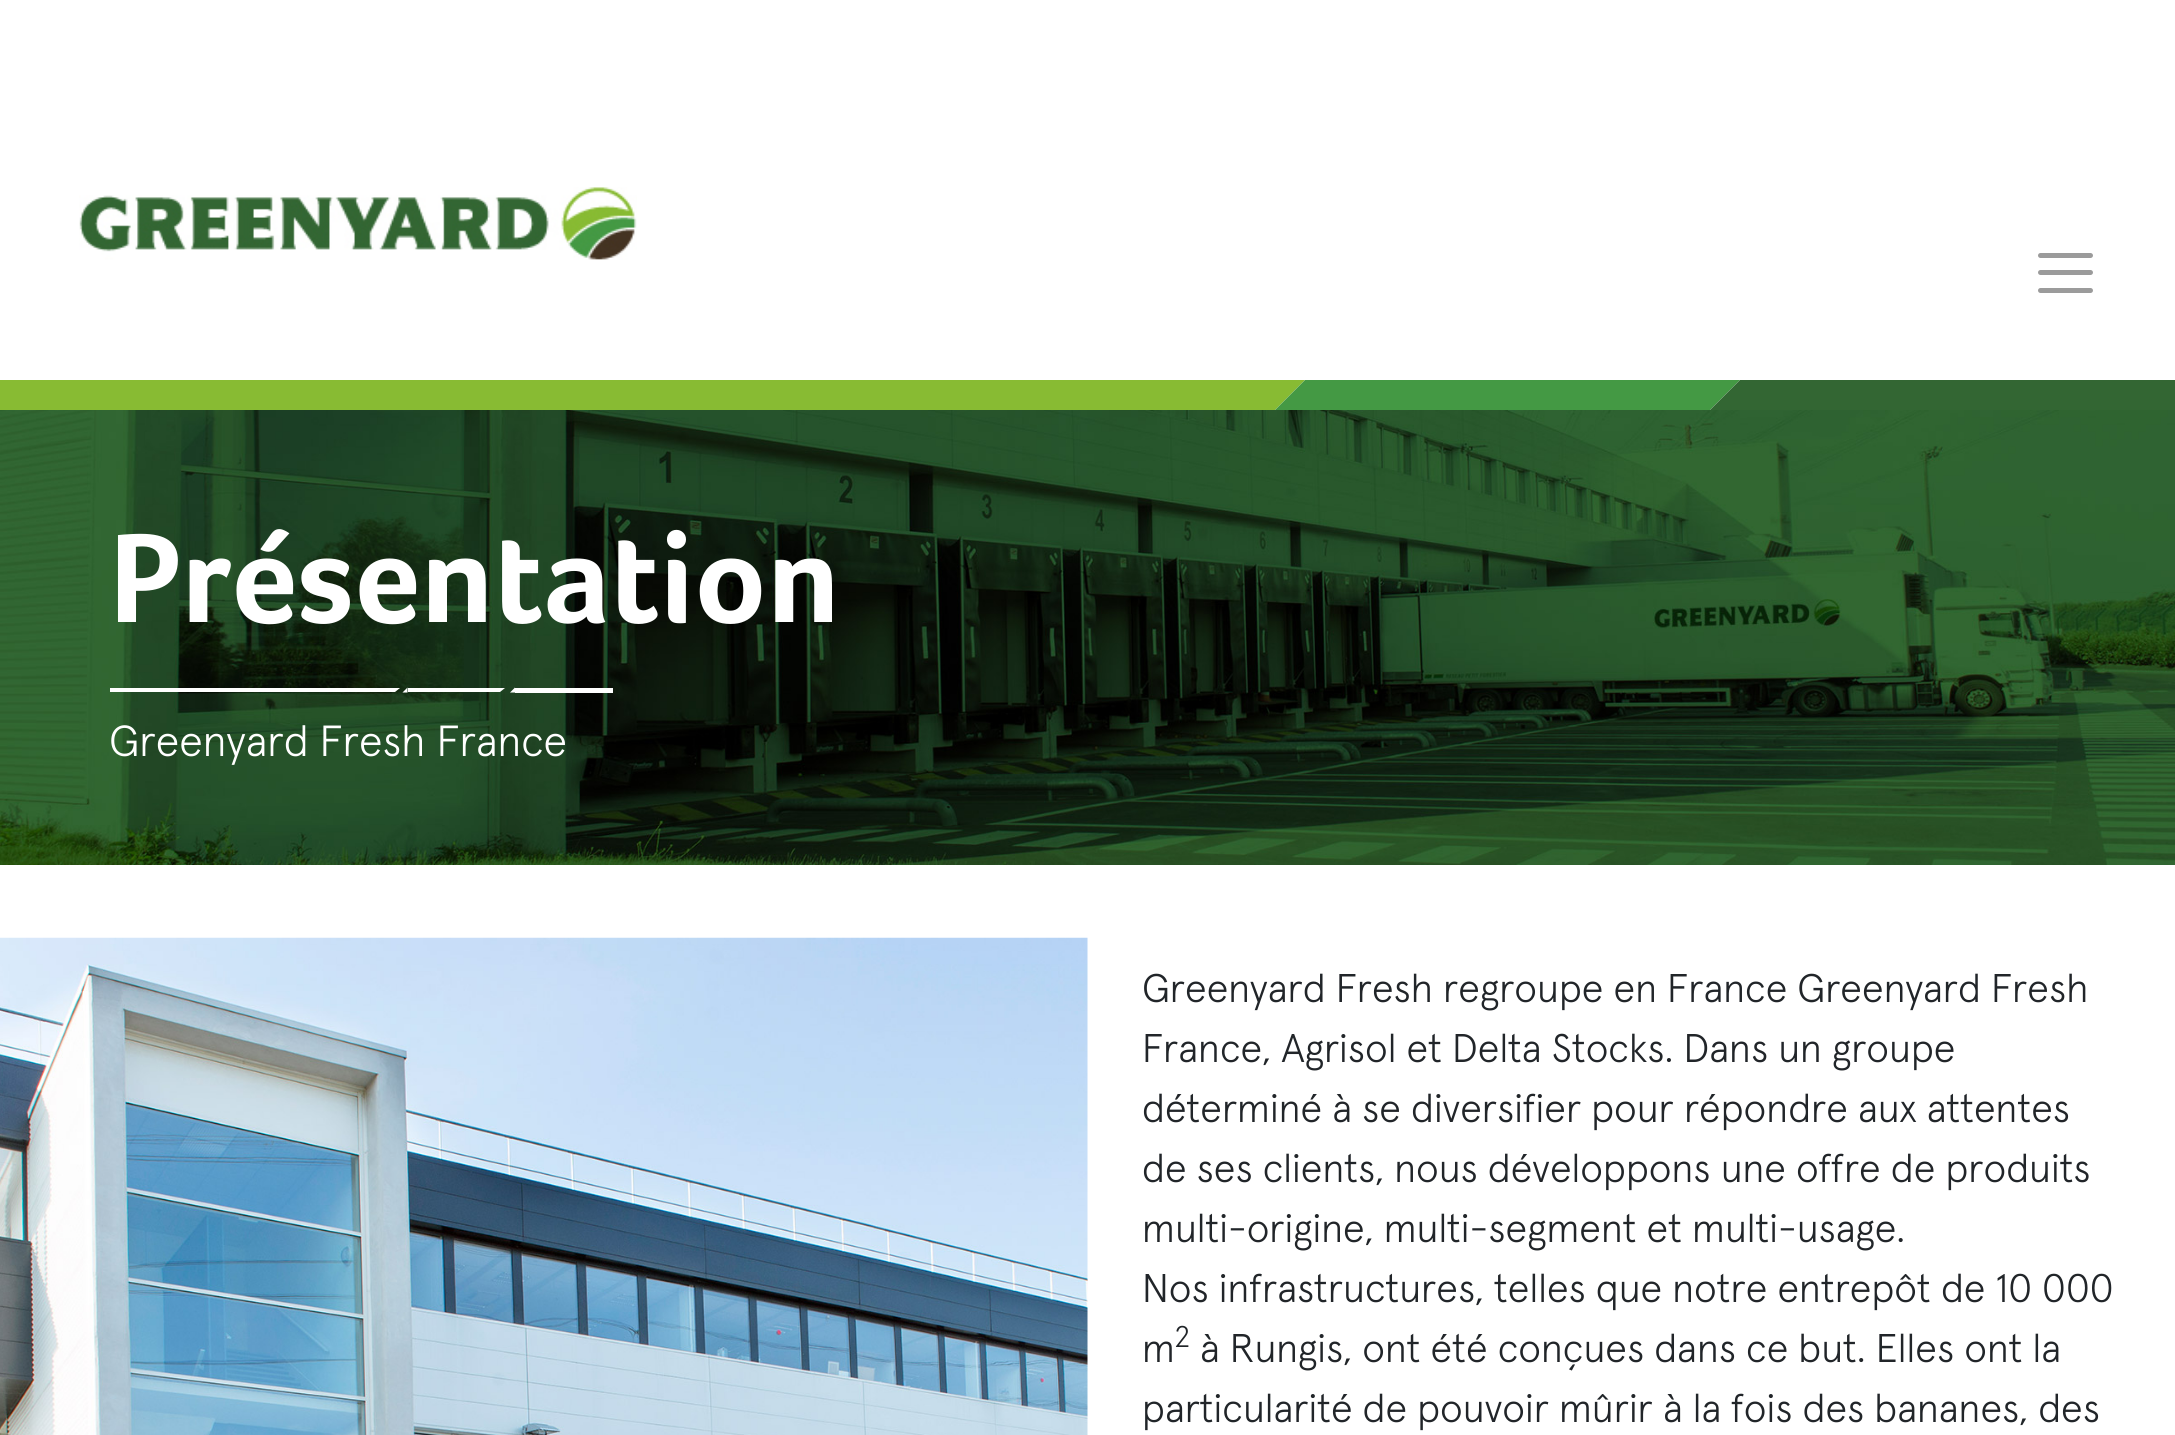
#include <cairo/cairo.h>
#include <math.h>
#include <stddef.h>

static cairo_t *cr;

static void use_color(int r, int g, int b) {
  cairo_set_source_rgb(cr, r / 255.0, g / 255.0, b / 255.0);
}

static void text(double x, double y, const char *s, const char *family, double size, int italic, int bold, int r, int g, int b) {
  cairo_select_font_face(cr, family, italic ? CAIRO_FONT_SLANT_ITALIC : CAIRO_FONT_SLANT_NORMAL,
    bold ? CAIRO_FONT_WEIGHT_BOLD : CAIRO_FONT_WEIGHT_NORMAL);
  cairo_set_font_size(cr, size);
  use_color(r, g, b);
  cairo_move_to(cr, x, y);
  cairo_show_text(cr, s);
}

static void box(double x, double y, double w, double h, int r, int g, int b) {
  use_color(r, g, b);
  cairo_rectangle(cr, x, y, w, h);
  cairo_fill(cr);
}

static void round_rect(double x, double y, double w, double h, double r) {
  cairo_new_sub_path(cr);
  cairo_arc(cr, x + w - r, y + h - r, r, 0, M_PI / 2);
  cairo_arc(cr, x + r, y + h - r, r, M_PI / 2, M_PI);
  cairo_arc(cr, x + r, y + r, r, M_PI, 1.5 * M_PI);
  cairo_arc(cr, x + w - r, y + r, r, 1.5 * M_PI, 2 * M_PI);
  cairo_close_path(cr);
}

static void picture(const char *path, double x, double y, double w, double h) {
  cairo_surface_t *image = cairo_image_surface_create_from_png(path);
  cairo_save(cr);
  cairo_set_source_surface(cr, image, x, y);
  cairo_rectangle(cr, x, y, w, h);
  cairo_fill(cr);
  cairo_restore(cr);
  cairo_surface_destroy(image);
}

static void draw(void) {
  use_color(255, 255, 255);
  cairo_paint(cr);
  picture("img_01.png", 79, 187, 558, 73);
  use_color(155, 155, 155);
  round_rect(2038, 253, 55, 5, 2.5);
  cairo_fill(cr);
  round_rect(2038, 270, 55, 5, 2.5);
  cairo_fill(cr);
  round_rect(2038, 288, 55, 5, 2.5);
  cairo_fill(cr);
  use_color(136, 187, 51);
  cairo_new_path(cr);
  cairo_move_to(cr, 0, 380);
  cairo_line_to(cr, 1305, 380);
  cairo_line_to(cr, 1275, 410);
  cairo_line_to(cr, 0, 410);
  cairo_close_path(cr);
  cairo_fill(cr);
  use_color(68, 153, 68);
  cairo_new_path(cr);
  cairo_move_to(cr, 1305, 380);
  cairo_line_to(cr, 1305, 410);
  cairo_line_to(cr, 1275, 410);
  cairo_close_path(cr);
  cairo_fill(cr);
  cairo_new_path(cr);
  cairo_move_to(cr, 1305, 380);
  cairo_line_to(cr, 1740, 380);
  cairo_line_to(cr, 1710, 410);
  cairo_line_to(cr, 1305, 410);
  cairo_close_path(cr);
  cairo_fill(cr);
  use_color(51, 102, 51);
  cairo_new_path(cr);
  cairo_move_to(cr, 1740, 380);
  cairo_line_to(cr, 1740, 410);
  cairo_line_to(cr, 1710, 410);
  cairo_close_path(cr);
  cairo_fill(cr);
  box(1740, 380, 435, 30, 51, 102, 51);
  picture("img_02.png", 0, 410, 2175, 455);
  use_color(255, 255, 255);
  cairo_new_path(cr);
  cairo_move_to(cr, 110, 688);
  cairo_line_to(cr, 400, 688);
  cairo_line_to(cr, 395, 692);
  cairo_line_to(cr, 110, 692);
  cairo_close_path(cr);
  cairo_fill(cr);
  cairo_new_path(cr);
  cairo_move_to(cr, 407.5, 687.5);
  cairo_line_to(cr, 407.5, 692.5);
  cairo_line_to(cr, 402.5, 692.5);
  cairo_close_path(cr);
  cairo_fill(cr);
  cairo_new_path(cr);
  cairo_move_to(cr, 408, 688);
  cairo_line_to(cr, 505, 688);
  cairo_line_to(cr, 500, 692);
  cairo_line_to(cr, 408, 692);
  cairo_close_path(cr);
  cairo_fill(cr);
  cairo_new_path(cr);
  cairo_move_to(cr, 515, 687.5);
  cairo_line_to(cr, 515, 692.5);
  cairo_line_to(cr, 510, 692.5);
  cairo_close_path(cr);
  cairo_fill(cr);
  box(515, 688, 98, 5, 255, 255, 255);
  picture("img_03.png", 0, 937, 1088, 498);
  text(109, 622, "Présentation", "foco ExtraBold", 130.5, 0, 0, 255, 255, 255);
  text(109, 756, "Greenyard Fresh France", "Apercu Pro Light", 43.5, 0, 0, 255, 255, 255);
  text(1142, 1002, "Greenyard Fresh regroupe en France Greenyard Fresh", "Apercu Pro Light", 40, 0, 0, 33, 37, 41);
  text(1142, 1062, "France, Agrisol et Delta Stocks. Dans un groupe", "Apercu Pro Light", 40, 0, 0, 33, 37, 41);
  text(1142, 1122, "déterminé à se diversifier pour répondre aux attentes", "Apercu Pro Light", 40, 0, 0, 33, 37, 41);
  text(1142, 1182, "de ses clients, nous développons une offre de produits", "Apercu Pro Light", 40, 0, 0, 33, 37, 41);
  text(1142, 1242, "multi-origine, multi-segment et multi-usage.", "Apercu Pro Light", 40, 0, 0, 33, 37, 41);
  text(1142, 1302, "Nos infrastructures, telles que notre entrepôt de 10 000", "Apercu Pro Light", 40, 0, 0, 33, 37, 41);
  text(1142, 1362, "m", "Apercu Pro Light", 40, 0, 0, 33, 37, 41);
  text(1175, 1347, "2", "Apercu Pro Light", 30, 0, 0, 33, 37, 41);
  text(1200, 1362, "à Rungis, ont été conçues dans ce but. Elles ont la", "Apercu Pro Light", 40, 0, 0, 33, 37, 41);
  text(1142, 1422, "particularité de pouvoir mûrir à la fois des bananes, des", "Apercu Pro Light", 40, 0, 0, 33, 37, 41);
}

int main(void) {
  cairo_surface_t *surface = cairo_image_surface_create(CAIRO_FORMAT_RGB24, 2175, 1435);
  cr = cairo_create(surface);
  cairo_font_options_t *options = cairo_font_options_create();
  cairo_font_options_set_hint_metrics(options, CAIRO_HINT_METRICS_OFF);
  cairo_font_options_set_hint_style(options, CAIRO_HINT_STYLE_NONE);
  cairo_set_font_options(cr, options);
  cairo_set_miter_limit(cr, 4);
  draw();
  cairo_surface_write_to_png(surface, "out.png");
  cairo_font_options_destroy(options);
  cairo_destroy(cr);
  cairo_surface_destroy(surface);
  return 0;
}
